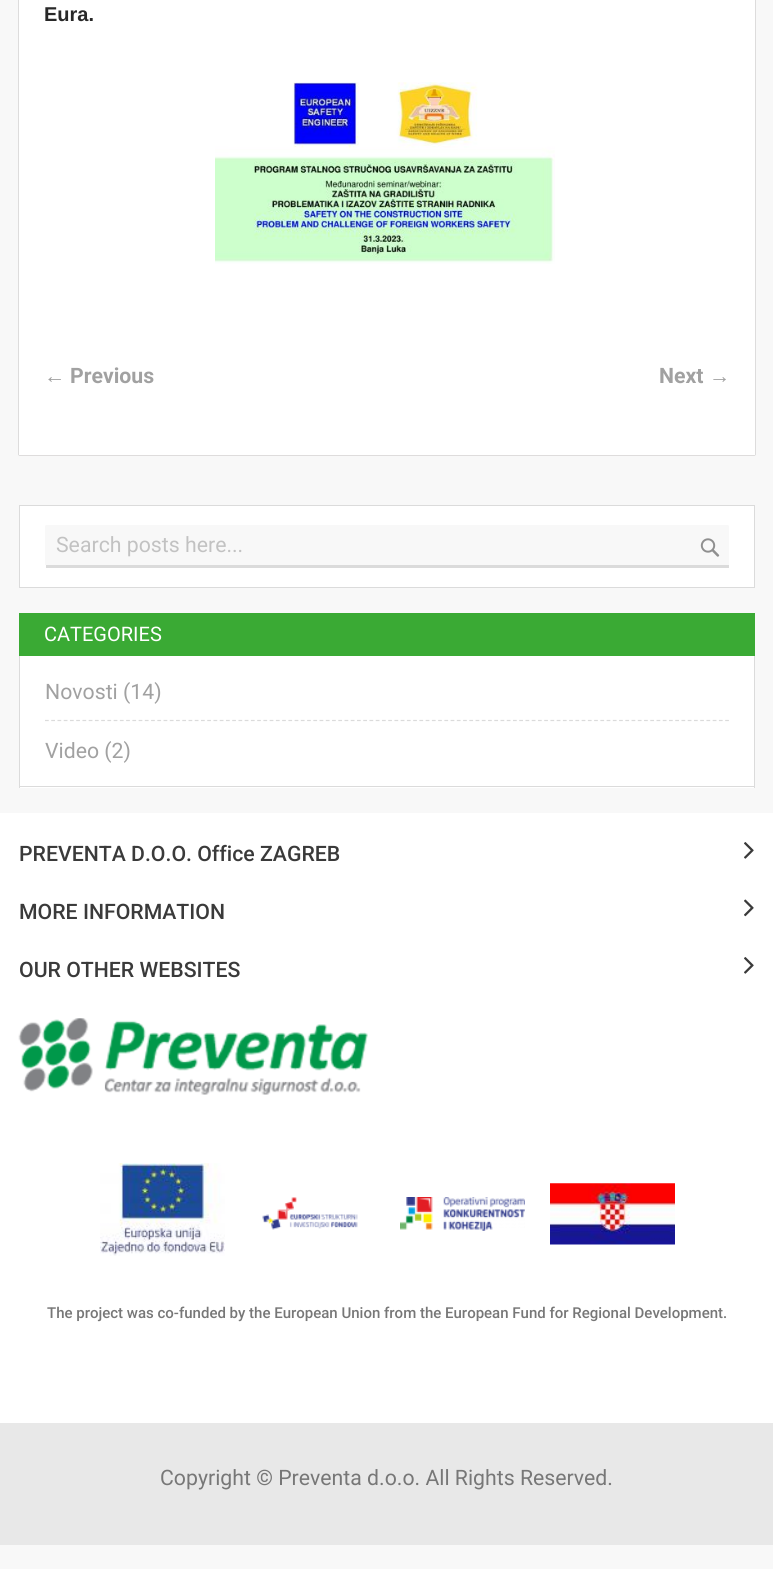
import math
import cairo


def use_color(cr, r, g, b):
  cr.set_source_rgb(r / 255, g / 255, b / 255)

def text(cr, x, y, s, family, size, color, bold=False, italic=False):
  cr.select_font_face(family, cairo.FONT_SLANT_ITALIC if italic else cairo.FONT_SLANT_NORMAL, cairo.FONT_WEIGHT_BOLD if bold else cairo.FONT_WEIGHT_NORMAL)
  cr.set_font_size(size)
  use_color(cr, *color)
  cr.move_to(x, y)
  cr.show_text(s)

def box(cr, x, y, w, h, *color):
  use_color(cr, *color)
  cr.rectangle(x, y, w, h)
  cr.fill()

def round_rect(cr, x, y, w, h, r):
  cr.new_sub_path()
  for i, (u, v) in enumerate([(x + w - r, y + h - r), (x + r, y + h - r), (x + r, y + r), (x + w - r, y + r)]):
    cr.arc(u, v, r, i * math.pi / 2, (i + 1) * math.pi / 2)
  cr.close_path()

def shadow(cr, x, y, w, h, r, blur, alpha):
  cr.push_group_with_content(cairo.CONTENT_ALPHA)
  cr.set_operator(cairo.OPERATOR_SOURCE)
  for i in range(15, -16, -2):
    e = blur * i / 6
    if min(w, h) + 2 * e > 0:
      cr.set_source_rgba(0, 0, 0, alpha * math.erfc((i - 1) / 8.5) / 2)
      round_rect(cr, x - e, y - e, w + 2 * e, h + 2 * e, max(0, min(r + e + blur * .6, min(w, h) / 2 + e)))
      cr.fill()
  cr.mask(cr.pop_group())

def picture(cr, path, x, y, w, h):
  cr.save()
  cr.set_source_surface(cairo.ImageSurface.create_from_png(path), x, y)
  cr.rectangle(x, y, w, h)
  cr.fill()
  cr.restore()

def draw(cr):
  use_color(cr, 248, 248, 248)
  cr.paint()
  use_color(cr, 140, 134, 134)
  shadow(cr, 19, -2, 736, 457, 0, 0.5, 1)
  box(cr, 19, 0, 736, 455, 255, 255, 255)
  picture(cr, "img_01.png", 215, 82, 340, 182)
  cr.rectangle(19.5, 505.5, 735, 82)
  cr.fill_preserve()
  use_color(cr, 219, 219, 219)
  cr.set_line_width(1)
  cr.stroke()
  use_color(cr, 248, 248, 248)
  cr.new_path()
  cr.move_to(46, 525)
  cr.line_to(728, 525)
  cr.curve_to(728, 525, 729, 526, 729, 526)
  cr.line_to(729, 565)
  cr.line_to(45, 565)
  cr.line_to(45, 526)
  cr.close_path()
  cr.fill()
  box(cr, 46, 565, 683, 3, 219, 219, 219)
  picture(cr, "img_02.png", 700, 538, 20, 19)
  box(cr, 20, 656, 734, 132, 255, 255, 255)
  box(cr, 19, 613, 736, 43, 58, 170, 52)
  box(cr, 754, 656, 1, 132, 219, 219, 219)
  box(cr, 19, 786, 736, 1, 219, 219, 219)
  box(cr, 19, 656, 1, 132, 219, 219, 219)
  cr.new_path()
  cr.move_to(45, 720.5)
  cr.line_to(729, 720.5)
  cr.set_line_width(1.2)
  cr.set_dash([3.75, 2.49])
  cr.stroke()
  box(cr, 0, 813, 773, 610, 255, 255, 255)
  picture(cr, "img_03.png", 744, 842, 10, 17)
  picture(cr, "img_04.png", 744, 899, 10, 18)
  picture(cr, "img_03.png", 744, 957, 10, 17)
  picture(cr, "img_05.png", 18, 1018, 350, 77)
  picture(cr, "img_06.png", 100, 1163, 125, 93)
  picture(cr, "img_07.png", 262, 1197, 96, 33)
  picture(cr, "img_08.png", 400, 1197, 125, 34)
  picture(cr, "img_09.png", 550, 1183, 125, 62)
  box(cr, 0, 1423, 773, 122, 232, 232, 232)
  text(cr, 44, 21, "Eura.", "Liberation Sans", 20, (40, 40, 40), bold=True)
  text(cr, 44, 383, "←", "Liberation Sans", 21.25, (161, 161, 161), bold=True)
  text(cr, 70, 383, "Previous", "Roboto", 21.25, (161, 161, 161), bold=True)
  text(cr, 659, 383, "Next", "Roboto", 21.25, (161, 161, 161), bold=True)
  text(cr, 709, 383, "→", "Liberation Sans", 21.25, (161, 161, 161), bold=True)
  text(cr, 56, 552, "Search posts here...", "Roboto", 21.25, (194, 194, 194))
  text(cr, 44, 641, "CATEGORIES", "Roboto", 20, (255, 255, 255))
  text(cr, 45, 699, "Novosti (14)", "Roboto", 21.25, (161, 161, 161))
  text(cr, 45, 758, "Video (2)", "Roboto", 21.25, (161, 161, 161))
  text(cr, 19, 861, "PREVENTA D.O.O. Office ZAGREB", "Roboto Medium", 21.25, (58, 58, 58))
  text(cr, 19, 919, "MORE INFORMATION", "Roboto Medium", 21.25, (58, 58, 58))
  text(cr, 19, 977, "OUR OTHER WEBSITES", "Roboto Medium", 21.25, (58, 58, 58))
  text(cr, 47, 1318, "The project was co-funded by the European Union from the European Fund for Regional Development.", "Roboto Medium", 15, (119, 119, 119))
  text(cr, 160, 1485, "Copyright © Preventa d.o.o. All Rights Reserved.", "Roboto", 21.25, (119, 119, 119))


surface = cairo.ImageSurface(cairo.FORMAT_RGB24, 773, 1569)
cr = cairo.Context(surface)
options = cairo.FontOptions()
options.set_hint_metrics(cairo.HINT_METRICS_OFF)
options.set_hint_style(cairo.HINT_STYLE_NONE)
cr.set_font_options(options)
cr.set_miter_limit(4)
draw(cr)
surface.write_to_png("out.png")
